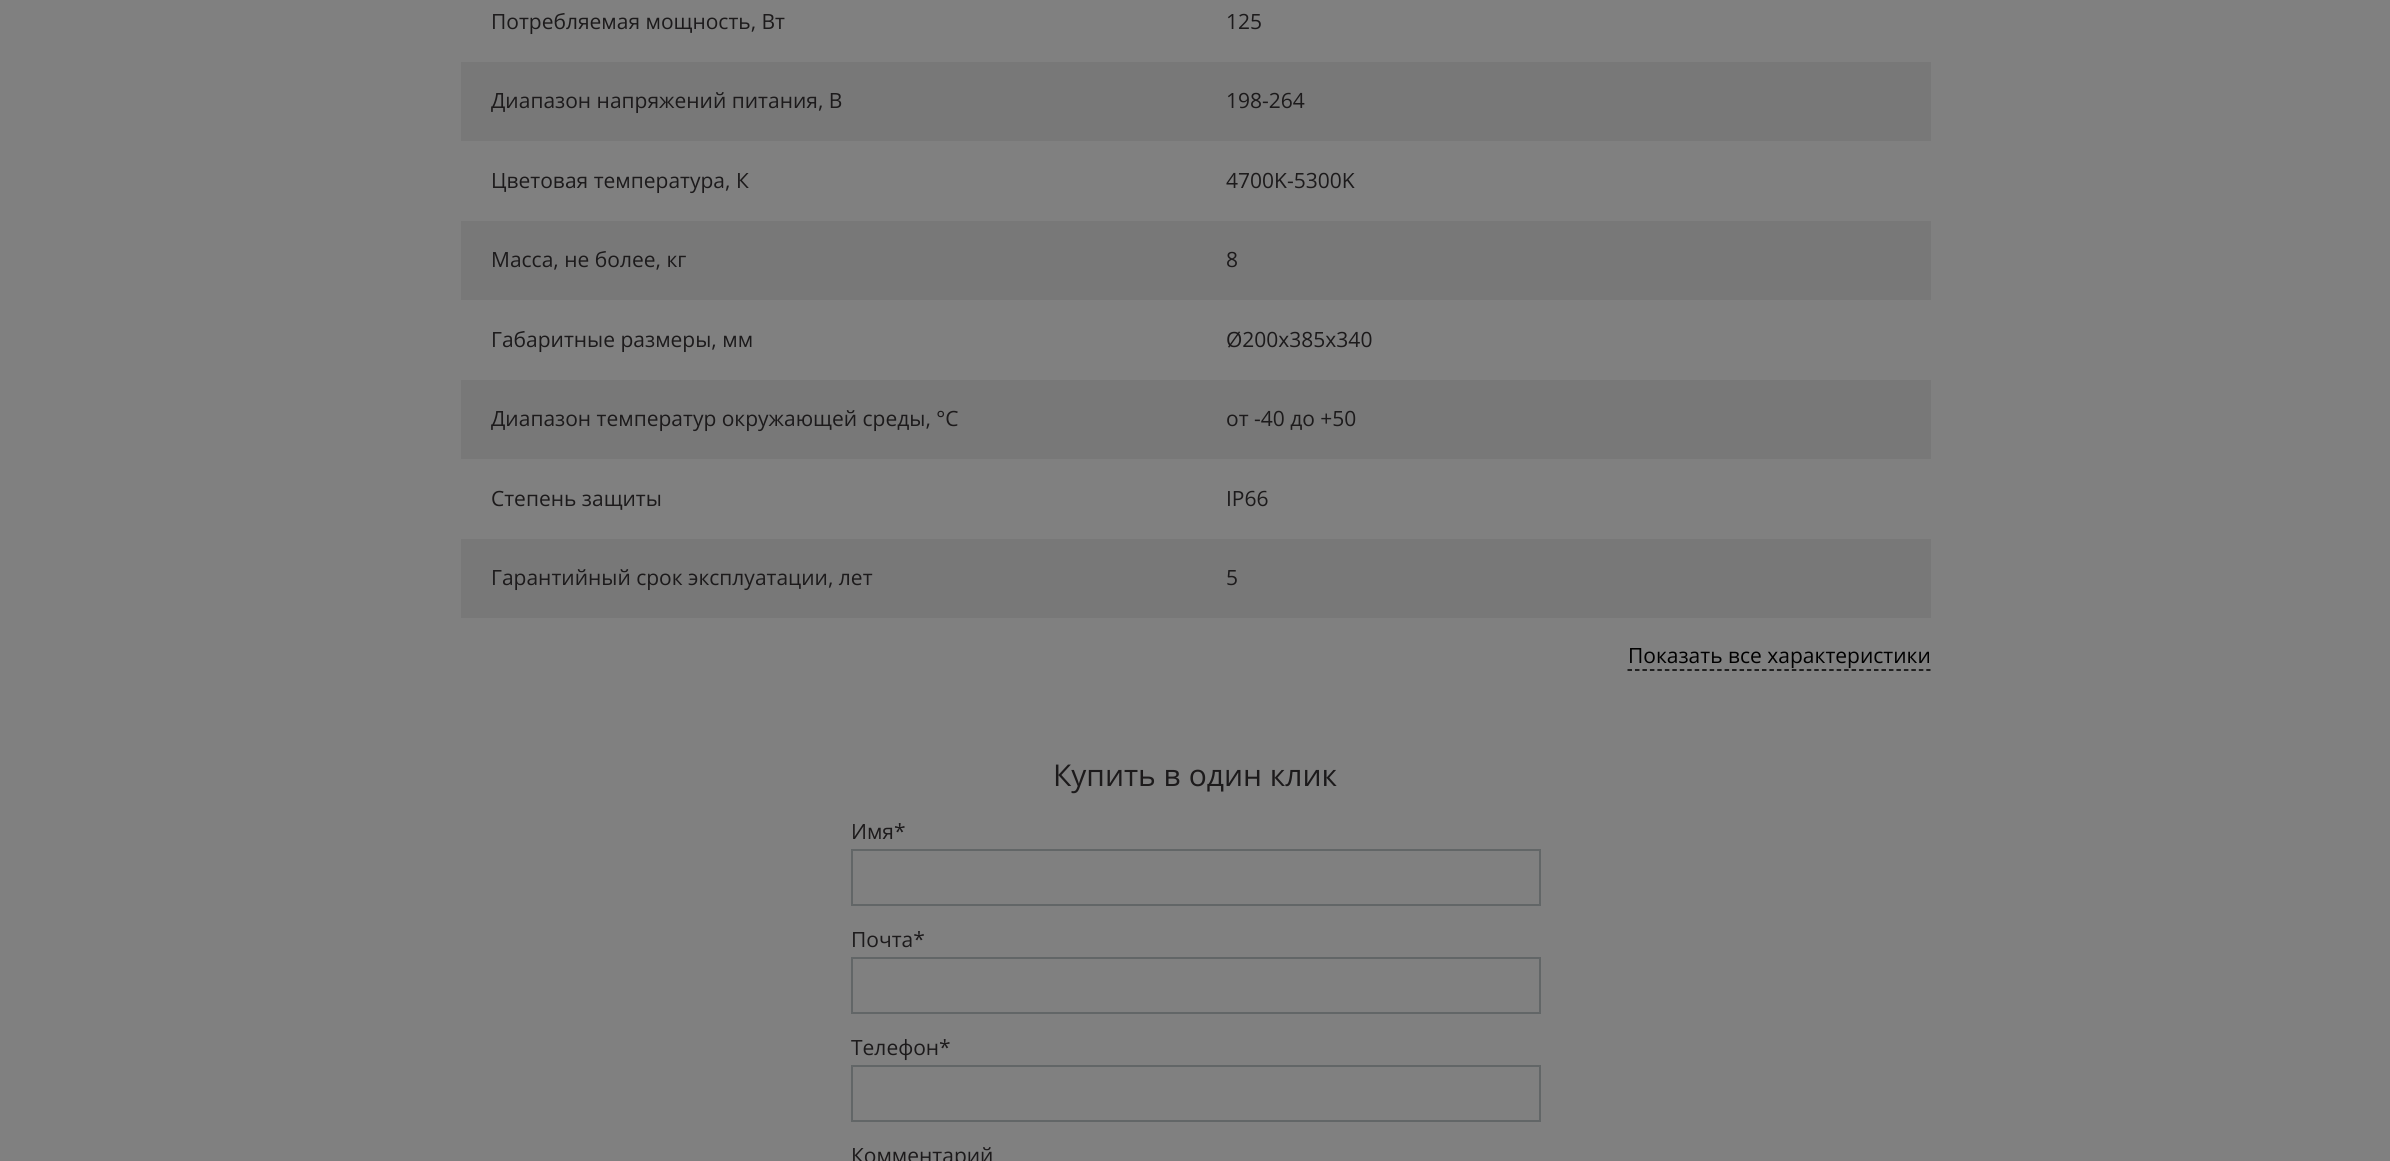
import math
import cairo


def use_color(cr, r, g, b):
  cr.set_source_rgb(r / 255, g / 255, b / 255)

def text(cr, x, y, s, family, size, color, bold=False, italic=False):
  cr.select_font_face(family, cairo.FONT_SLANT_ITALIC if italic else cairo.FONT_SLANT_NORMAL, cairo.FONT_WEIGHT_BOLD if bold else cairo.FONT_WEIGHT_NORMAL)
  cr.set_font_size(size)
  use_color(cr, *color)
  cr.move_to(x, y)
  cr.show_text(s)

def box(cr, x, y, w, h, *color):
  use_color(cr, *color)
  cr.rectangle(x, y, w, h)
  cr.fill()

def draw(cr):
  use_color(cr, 128, 128, 128)
  cr.paint()
  box(cr, 461, 62, 1470, 79, 120, 120, 120)
  box(cr, 461, 221, 1470, 79, 120, 120, 120)
  box(cr, 461, 380, 1470, 79, 120, 120, 120)
  box(cr, 461, 539, 1470, 79, 120, 120, 120)
  cr.new_path()
  cr.move_to(1627.5, 670)
  cr.line_to(1930.5, 670)
  use_color(cr, 0, 0, 0)
  cr.set_line_width(1.5)
  cr.set_dash([4.5, 2.97])
  cr.stroke()
  cr.rectangle(852, 850, 688, 55)
  use_color(cr, 98, 102, 103)
  cr.set_line_width(2)
  cr.set_dash([])
  cr.stroke()
  cr.rectangle(852, 958, 688, 55)
  cr.stroke()
  cr.rectangle(852, 1066, 688, 55)
  cr.stroke()
  text(cr, 491, 29, "Потребляемая мощность, Вт", "Open Sans", 21, (28, 26, 27))
  text(cr, 1226, 29, "125", "Open Sans", 21, (28, 26, 27))
  text(cr, 491, 108, "Диапазон напряжений питания, В", "Open Sans", 21, (28, 26, 27))
  text(cr, 1226, 108, "198-264", "Open Sans", 21, (28, 26, 27))
  text(cr, 491, 188, "Цветовая температура, К", "Open Sans", 21, (28, 26, 27))
  text(cr, 1226, 188, "4700K-5300K", "Open Sans", 21, (28, 26, 27))
  text(cr, 491, 267, "Масса, не более, кг", "Open Sans", 21, (28, 26, 27))
  text(cr, 1226, 267, "8", "Open Sans", 21, (28, 26, 27))
  text(cr, 491, 347, "Габаритные размеры, мм", "Open Sans", 21, (28, 26, 27))
  text(cr, 1226, 347, "Ø200х385х340", "Open Sans", 21, (28, 26, 27))
  text(cr, 491, 426, "Диапазон температур окружающей среды, °C", "Open Sans", 21, (28, 26, 27))
  text(cr, 1226, 426, "от -40 до +50", "Open Sans", 21, (28, 26, 27))
  text(cr, 491, 506, "Степень защиты", "Open Sans", 21, (28, 26, 27))
  text(cr, 1226, 506, "IP66", "Open Sans", 21, (28, 26, 27))
  text(cr, 491, 585, "Гарантийный срок эксплуатации, лет", "Open Sans", 21, (28, 26, 27))
  text(cr, 1226, 585, "5", "Open Sans", 21, (28, 26, 27))
  text(cr, 1628, 663, "Показать все характеристики", "Open Sans", 21, (0, 0, 0))
  text(cr, 1053, 786, "Купить в один клик", "Open Sans", 30, (28, 26, 27))
  text(cr, 851, 839, "Имя*", "Open Sans", 21, (28, 26, 27))
  text(cr, 851, 947, "Почта*", "Open Sans", 21, (28, 26, 27))
  text(cr, 851, 1055, "Телефон*", "Open Sans", 21, (28, 26, 27))
  text(cr, 851, 1163, "Комментарий", "Open Sans", 21, (28, 26, 27))


surface = cairo.ImageSurface(cairo.FORMAT_RGB24, 2390, 1161)
cr = cairo.Context(surface)
options = cairo.FontOptions()
options.set_hint_metrics(cairo.HINT_METRICS_OFF)
options.set_hint_style(cairo.HINT_STYLE_NONE)
cr.set_font_options(options)
cr.set_miter_limit(4)
draw(cr)
surface.write_to_png("out.png")
